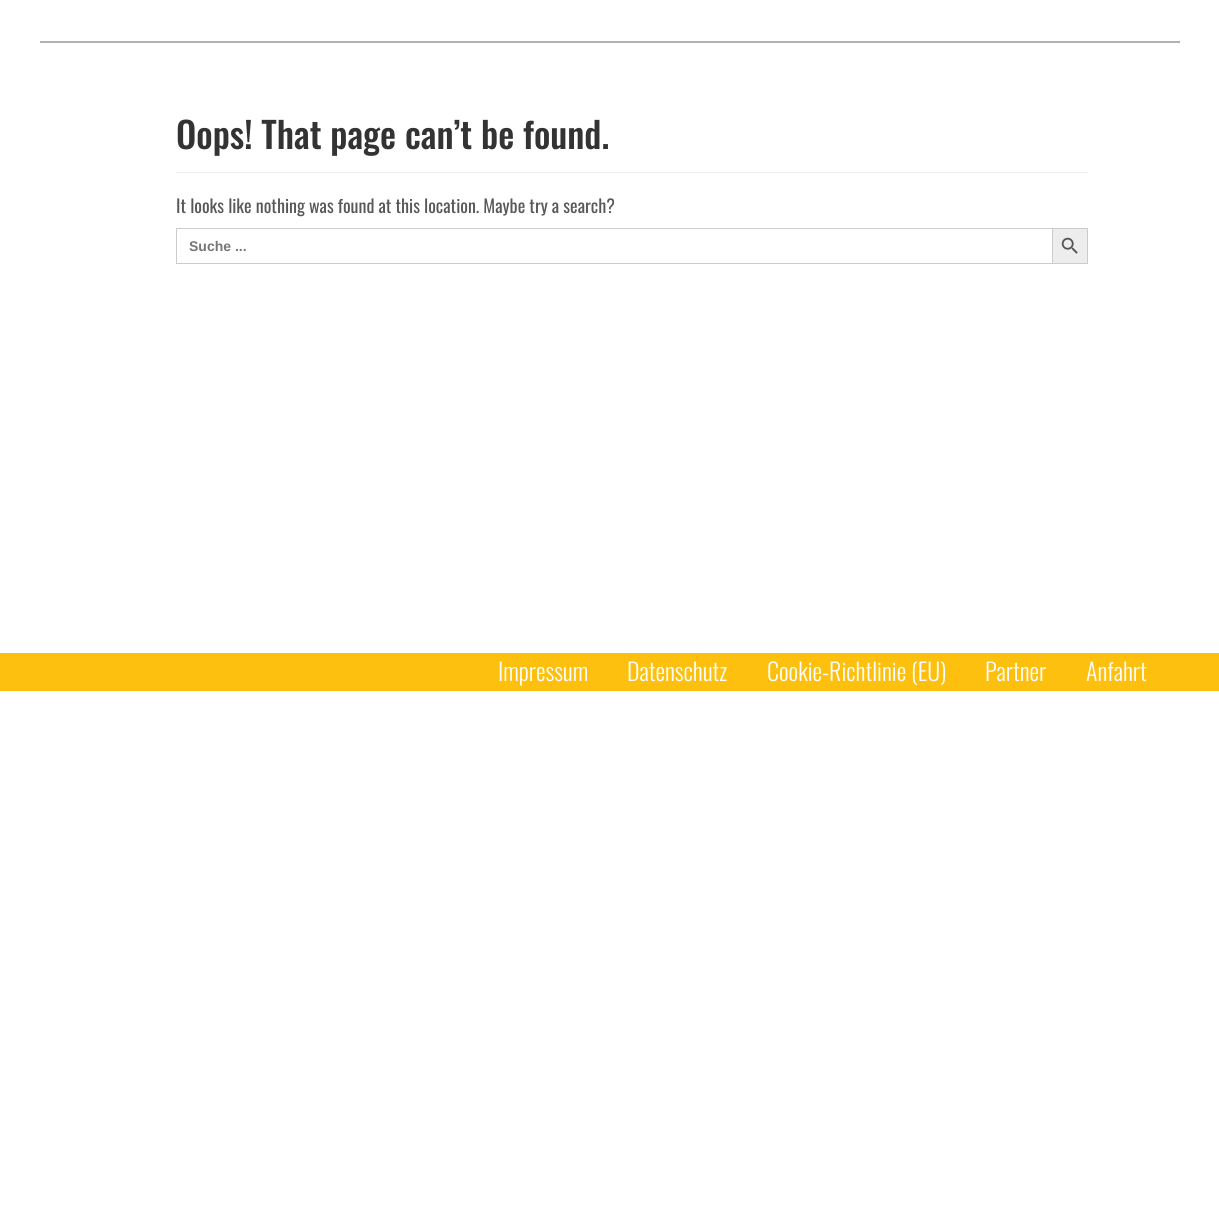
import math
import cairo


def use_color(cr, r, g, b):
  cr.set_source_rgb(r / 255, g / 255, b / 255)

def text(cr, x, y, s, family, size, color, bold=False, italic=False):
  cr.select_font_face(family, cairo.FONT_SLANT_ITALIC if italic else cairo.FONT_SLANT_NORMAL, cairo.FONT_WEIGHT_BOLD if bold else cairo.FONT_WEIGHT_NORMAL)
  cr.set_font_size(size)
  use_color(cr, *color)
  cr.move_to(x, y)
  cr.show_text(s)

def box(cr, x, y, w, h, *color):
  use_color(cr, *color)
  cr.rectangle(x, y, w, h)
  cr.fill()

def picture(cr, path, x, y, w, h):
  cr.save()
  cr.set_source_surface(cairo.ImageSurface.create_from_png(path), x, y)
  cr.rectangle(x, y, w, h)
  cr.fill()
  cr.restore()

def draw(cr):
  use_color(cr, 255, 255, 255)
  cr.paint()
  box(cr, 40, 41, 1140, 2, 178, 178, 178)
  box(cr, 176, 172, 912, 1, 238, 238, 238)
  box(cr, 176, 228, 876, 1, 204, 204, 204)
  box(cr, 176, 263, 876, 1, 204, 204, 204)
  box(cr, 176, 228, 1, 36, 204, 204, 204)
  use_color(cr, 237, 237, 237)
  cr.rectangle(1052.5, 228.5, 35, 35)
  cr.fill_preserve()
  use_color(cr, 204, 204, 204)
  cr.set_line_width(1)
  cr.stroke()
  picture(cr, "img_01.png", 1061, 237, 17, 17)
  box(cr, 0, 653, 1219, 38, 254, 192, 15)
  text(cr, 176, 149, "Oops! That page can’t be found.", "Oswald Medium", 36, (51, 51, 51))
  text(cr, 176, 213, "It looks like nothing was found at this location. Maybe try a search?", "Oswald", 18, (88, 88, 90))
  text(cr, 189, 251, "Suche ...", "Liberation Sans", 14, (117, 117, 117), bold=True)
  text(cr, 498, 681, "Impressum", "Oswald Light", 24, (255, 255, 255))
  text(cr, 627, 681, "Datenschutz", "Oswald Light", 24, (255, 255, 255))
  text(cr, 767, 681, "Cookie-Richtlinie (EU)", "Oswald Light", 24, (255, 255, 255))
  text(cr, 985, 681, "Partner", "Oswald Light", 24, (255, 255, 255))
  text(cr, 1086, 681, "Anfahrt", "Oswald Light", 24, (255, 255, 255))


surface = cairo.ImageSurface(cairo.FORMAT_RGB24, 1219, 1214)
cr = cairo.Context(surface)
options = cairo.FontOptions()
options.set_hint_metrics(cairo.HINT_METRICS_OFF)
options.set_hint_style(cairo.HINT_STYLE_NONE)
cr.set_font_options(options)
cr.set_miter_limit(4)
draw(cr)
surface.write_to_png("out.png")
